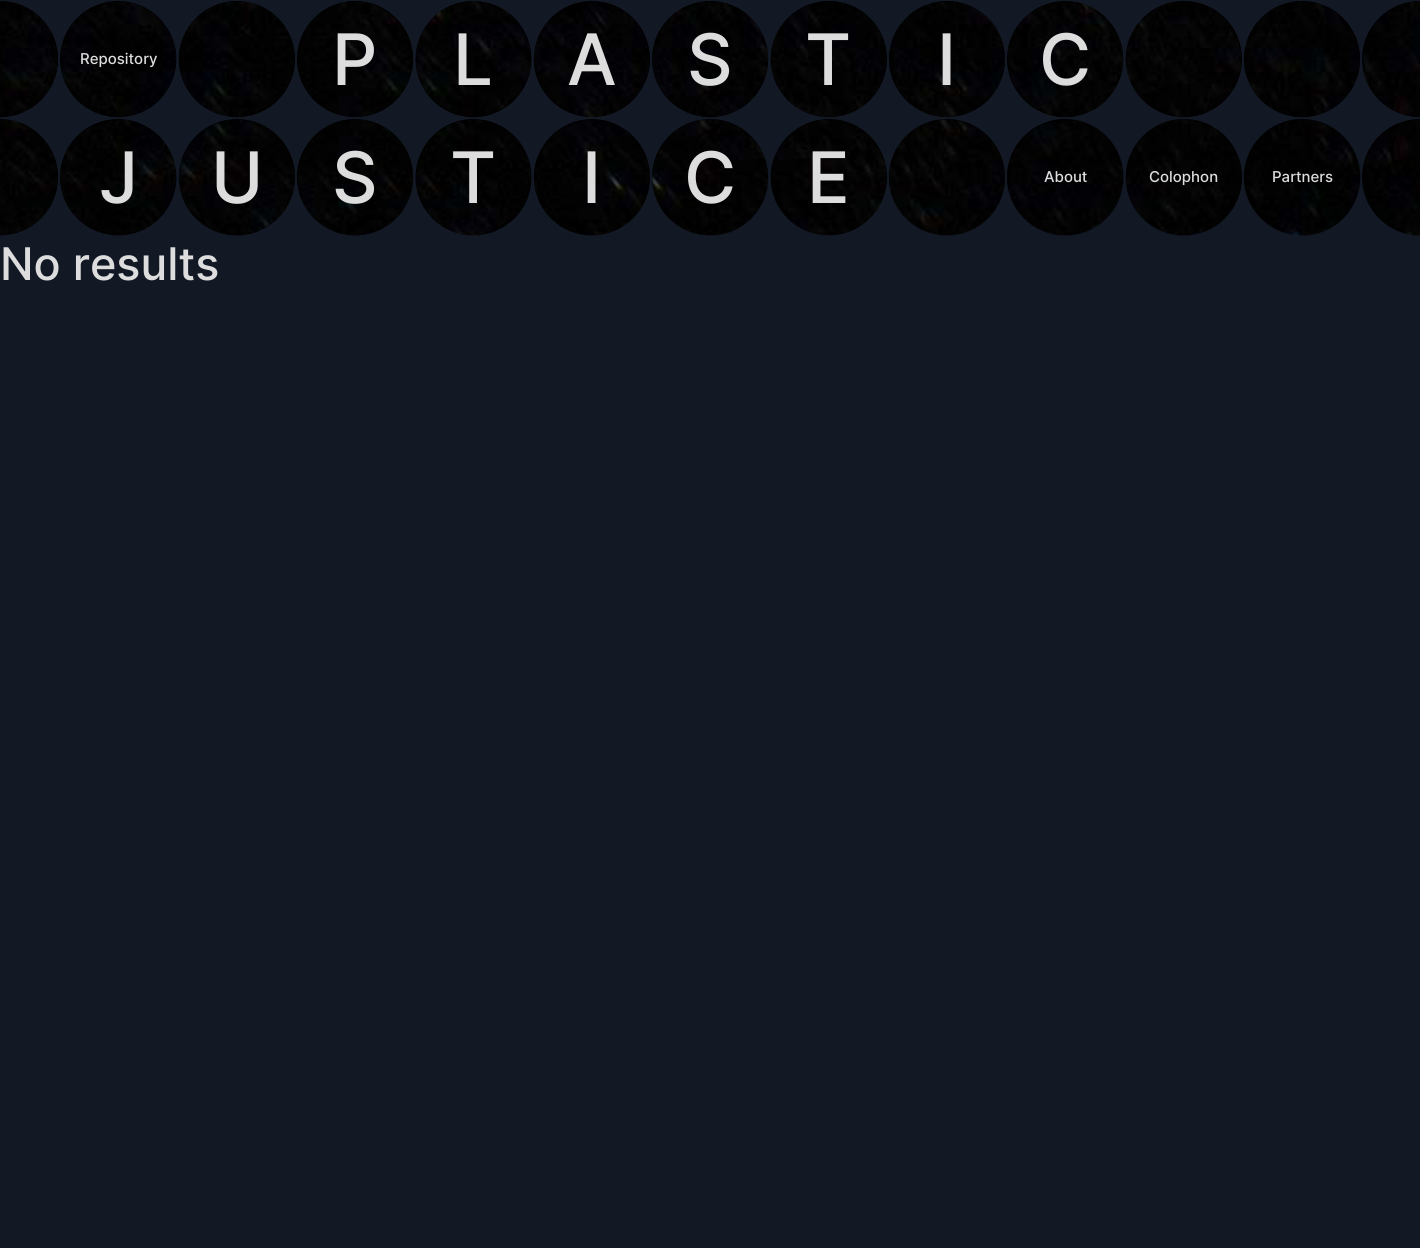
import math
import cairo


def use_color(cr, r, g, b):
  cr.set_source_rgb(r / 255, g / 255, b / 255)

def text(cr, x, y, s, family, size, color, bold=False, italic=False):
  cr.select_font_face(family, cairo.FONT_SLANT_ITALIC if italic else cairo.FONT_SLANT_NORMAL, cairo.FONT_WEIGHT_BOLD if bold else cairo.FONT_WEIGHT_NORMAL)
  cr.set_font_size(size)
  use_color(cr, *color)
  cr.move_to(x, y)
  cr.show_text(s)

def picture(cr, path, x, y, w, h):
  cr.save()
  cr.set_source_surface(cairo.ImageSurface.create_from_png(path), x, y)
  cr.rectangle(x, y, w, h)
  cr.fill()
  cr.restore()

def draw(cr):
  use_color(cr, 18, 25, 37)
  cr.paint()
  use_color(cr, 0, 0, 0)
  cr.new_path()
  cr.move_to(0, 1)
  cr.curve_to(-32, 1, -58, 27, -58, 59)
  cr.curve_to(-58, 91, -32, 117, 0, 117)
  cr.curve_to(32, 117, 58, 91, 58, 59)
  cr.curve_to(58, 27, 32, 1, 0, 1)
  cr.close_path()
  cr.fill()
  picture(cr, "img_01.png", 0, 1, 58, 117)
  cr.new_path()
  cr.move_to(118, 1)
  cr.curve_to(86, 1, 60, 27, 60, 59)
  cr.curve_to(60, 91, 86, 117, 118, 117)
  cr.curve_to(150, 117, 176, 91, 176, 59)
  cr.curve_to(176, 27, 150, 1, 118, 1)
  cr.close_path()
  cr.fill()
  picture(cr, "img_02.png", 61, 1, 116, 117)
  cr.new_path()
  cr.move_to(237, 1)
  cr.curve_to(205, 1, 179, 27, 179, 59)
  cr.curve_to(179, 91, 205, 117, 237, 117)
  cr.curve_to(269, 117, 295, 91, 295, 59)
  cr.curve_to(295, 27, 269, 1, 237, 1)
  cr.close_path()
  cr.fill()
  picture(cr, "img_03.png", 178, 1, 117, 117)
  cr.new_path()
  cr.move_to(355, 1)
  cr.curve_to(323, 1, 297, 27, 297, 59)
  cr.curve_to(297, 91, 323, 117, 355, 117)
  cr.curve_to(387, 117, 413, 91, 413, 59)
  cr.curve_to(413, 27, 387, 1, 355, 1)
  cr.close_path()
  cr.fill()
  picture(cr, "img_04.png", 297, 1, 117, 117)
  cr.new_path()
  cr.move_to(473, 1)
  cr.curve_to(441, 1, 416, 27, 416, 59)
  cr.curve_to(416, 91, 441, 117, 473, 117)
  cr.curve_to(506, 117, 531, 91, 531, 59)
  cr.curve_to(531, 27, 506, 1, 473, 1)
  cr.close_path()
  cr.fill()
  picture(cr, "img_05.png", 415, 1, 117, 117)
  cr.new_path()
  cr.move_to(592, 1)
  cr.curve_to(560, 1, 534, 27, 534, 59)
  cr.curve_to(534, 91, 560, 117, 592, 117)
  cr.curve_to(624, 117, 650, 91, 650, 59)
  cr.curve_to(650, 27, 624, 1, 592, 1)
  cr.close_path()
  cr.fill()
  picture(cr, "img_06.png", 533, 1, 117, 117)
  cr.new_path()
  cr.move_to(710, 1)
  cr.curve_to(678, 1, 652, 27, 652, 59)
  cr.curve_to(652, 91, 678, 117, 710, 117)
  cr.curve_to(742, 117, 768, 91, 768, 59)
  cr.curve_to(768, 27, 742, 1, 710, 1)
  cr.close_path()
  cr.fill()
  picture(cr, "img_07.png", 652, 1, 117, 117)
  cr.new_path()
  cr.move_to(829, 1)
  cr.curve_to(797, 1, 771, 27, 771, 59)
  cr.curve_to(771, 91, 797, 117, 829, 117)
  cr.curve_to(861, 117, 887, 91, 887, 59)
  cr.curve_to(887, 27, 861, 1, 829, 1)
  cr.close_path()
  cr.fill()
  picture(cr, "img_08.png", 770, 1, 116, 117)
  cr.new_path()
  cr.move_to(947, 1)
  cr.curve_to(915, 1, 889, 27, 889, 59)
  cr.curve_to(889, 91, 915, 117, 947, 117)
  cr.curve_to(979, 117, 1005, 91, 1005, 59)
  cr.curve_to(1005, 27, 979, 1, 947, 1)
  cr.close_path()
  cr.fill()
  picture(cr, "img_09.png", 889, 1, 116, 117)
  cr.new_path()
  cr.move_to(1065, 1)
  cr.curve_to(1033, 1, 1007, 27, 1007, 59)
  cr.curve_to(1007, 91, 1033, 117, 1065, 117)
  cr.curve_to(1097, 117, 1123, 91, 1123, 59)
  cr.curve_to(1123, 27, 1097, 1, 1065, 1)
  cr.close_path()
  cr.fill()
  picture(cr, "img_10.png", 1007, 1, 117, 117)
  cr.new_path()
  cr.move_to(1184, 1)
  cr.curve_to(1152, 1, 1126, 27, 1126, 59)
  cr.curve_to(1126, 91, 1152, 117, 1184, 117)
  cr.curve_to(1216, 117, 1242, 91, 1242, 59)
  cr.curve_to(1242, 27, 1216, 1, 1184, 1)
  cr.close_path()
  cr.fill()
  picture(cr, "img_11.png", 1125, 1, 117, 117)
  cr.new_path()
  cr.move_to(1302, 1)
  cr.curve_to(1270, 1, 1244, 27, 1244, 59)
  cr.curve_to(1244, 91, 1270, 117, 1302, 117)
  cr.curve_to(1334, 117, 1360, 91, 1360, 59)
  cr.curve_to(1360, 27, 1334, 1, 1302, 1)
  cr.close_path()
  cr.fill()
  picture(cr, "img_12.png", 1244, 1, 116, 117)
  cr.new_path()
  cr.move_to(1420, 1)
  cr.curve_to(1388, 1, 1362, 27, 1362, 59)
  cr.curve_to(1362, 91, 1388, 117, 1420, 117)
  cr.curve_to(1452, 117, 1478, 91, 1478, 59)
  cr.curve_to(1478, 27, 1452, 1, 1420, 1)
  cr.close_path()
  cr.fill()
  picture(cr, "img_13.png", 1362, 1, 58, 117)
  cr.new_path()
  cr.move_to(0, 119)
  cr.curve_to(-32, 119, -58, 145, -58, 177)
  cr.curve_to(-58, 209, -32, 235, 0, 235)
  cr.curve_to(32, 235, 58, 209, 58, 177)
  cr.curve_to(58, 145, 32, 119, 0, 119)
  cr.close_path()
  cr.fill()
  picture(cr, "img_14.png", 0, 120, 58, 116)
  cr.new_path()
  cr.move_to(118, 119)
  cr.curve_to(86, 119, 60, 145, 60, 177)
  cr.curve_to(60, 209, 86, 235, 118, 235)
  cr.curve_to(150, 235, 176, 209, 176, 177)
  cr.curve_to(176, 145, 150, 119, 118, 119)
  cr.close_path()
  cr.fill()
  picture(cr, "img_15.png", 60, 120, 117, 116)
  cr.new_path()
  cr.move_to(237, 119)
  cr.curve_to(205, 119, 179, 145, 179, 177)
  cr.curve_to(179, 209, 205, 235, 237, 235)
  cr.curve_to(269, 235, 295, 209, 295, 177)
  cr.curve_to(295, 145, 269, 119, 237, 119)
  cr.close_path()
  cr.fill()
  picture(cr, "img_16.png", 178, 120, 117, 116)
  cr.new_path()
  cr.move_to(355, 119)
  cr.curve_to(323, 119, 297, 145, 297, 177)
  cr.curve_to(297, 209, 323, 235, 355, 235)
  cr.curve_to(387, 235, 413, 209, 413, 177)
  cr.curve_to(413, 145, 387, 119, 355, 119)
  cr.close_path()
  cr.fill()
  picture(cr, "img_17.png", 297, 120, 116, 116)
  cr.new_path()
  cr.move_to(473, 119)
  cr.curve_to(441, 119, 416, 145, 416, 177)
  cr.curve_to(416, 209, 441, 235, 473, 235)
  cr.curve_to(506, 235, 531, 209, 531, 177)
  cr.curve_to(531, 145, 506, 119, 473, 119)
  cr.close_path()
  cr.fill()
  picture(cr, "img_18.png", 415, 120, 117, 116)
  cr.new_path()
  cr.move_to(592, 119)
  cr.curve_to(560, 119, 534, 145, 534, 177)
  cr.curve_to(534, 209, 560, 235, 592, 235)
  cr.curve_to(624, 235, 650, 209, 650, 177)
  cr.curve_to(650, 145, 624, 119, 592, 119)
  cr.close_path()
  cr.fill()
  picture(cr, "img_19.png", 533, 120, 117, 116)
  cr.new_path()
  cr.move_to(710, 119)
  cr.curve_to(678, 119, 652, 145, 652, 177)
  cr.curve_to(652, 209, 678, 235, 710, 235)
  cr.curve_to(742, 235, 768, 209, 768, 177)
  cr.curve_to(768, 145, 742, 119, 710, 119)
  cr.close_path()
  cr.fill()
  picture(cr, "img_20.png", 652, 119, 117, 117)
  cr.new_path()
  cr.move_to(829, 119)
  cr.curve_to(797, 119, 771, 145, 771, 177)
  cr.curve_to(771, 209, 797, 235, 829, 235)
  cr.curve_to(861, 235, 887, 209, 887, 177)
  cr.curve_to(887, 145, 861, 119, 829, 119)
  cr.close_path()
  cr.fill()
  picture(cr, "img_21.png", 770, 120, 116, 116)
  cr.new_path()
  cr.move_to(947, 119)
  cr.curve_to(915, 119, 889, 145, 889, 177)
  cr.curve_to(889, 209, 915, 235, 947, 235)
  cr.curve_to(979, 235, 1005, 209, 1005, 177)
  cr.curve_to(1005, 145, 979, 119, 947, 119)
  cr.close_path()
  cr.fill()
  picture(cr, "img_22.png", 889, 119, 116, 117)
  cr.new_path()
  cr.move_to(1065, 119)
  cr.curve_to(1033, 119, 1007, 145, 1007, 177)
  cr.curve_to(1007, 209, 1033, 235, 1065, 235)
  cr.curve_to(1097, 235, 1123, 209, 1123, 177)
  cr.curve_to(1123, 145, 1097, 119, 1065, 119)
  cr.close_path()
  cr.fill()
  picture(cr, "img_23.png", 1007, 119, 117, 117)
  cr.new_path()
  cr.move_to(1184, 119)
  cr.curve_to(1152, 119, 1126, 145, 1126, 177)
  cr.curve_to(1126, 209, 1152, 235, 1184, 235)
  cr.curve_to(1216, 235, 1242, 209, 1242, 177)
  cr.curve_to(1242, 145, 1216, 119, 1184, 119)
  cr.close_path()
  cr.fill()
  picture(cr, "img_24.png", 1125, 119, 117, 117)
  cr.new_path()
  cr.move_to(1302, 119)
  cr.curve_to(1270, 119, 1244, 145, 1244, 177)
  cr.curve_to(1244, 209, 1270, 235, 1302, 235)
  cr.curve_to(1334, 235, 1360, 209, 1360, 177)
  cr.curve_to(1360, 145, 1334, 119, 1302, 119)
  cr.close_path()
  cr.fill()
  picture(cr, "img_25.png", 1243, 119, 118, 117)
  cr.new_path()
  cr.move_to(1420, 119)
  cr.curve_to(1388, 119, 1362, 145, 1362, 177)
  cr.curve_to(1362, 209, 1388, 235, 1420, 235)
  cr.curve_to(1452, 235, 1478, 209, 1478, 177)
  cr.curve_to(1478, 145, 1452, 119, 1420, 119)
  cr.close_path()
  cr.fill()
  picture(cr, "img_26.png", 1364, 119, 56, 117)
  text(cr, 80, 64, "Repository", "Inter Medium", 15, (221, 221, 221))
  text(cr, 332, 85, "P", "Inter Medium", 71, (221, 221, 221))
  text(cr, 453, 85, "L", "Inter Medium", 71, (221, 221, 221))
  text(cr, 567, 85, "A", "Inter Medium", 71, (221, 221, 221))
  text(cr, 687, 85, "S", "Inter Medium", 71, (221, 221, 221))
  text(cr, 805, 85, "T", "Inter Medium", 71, (221, 221, 221))
  text(cr, 937, 85, "I", "Inter Medium", 71, (221, 221, 221))
  text(cr, 1039, 85, "C", "Inter Medium", 71, (221, 221, 221))
  text(cr, 99, 203, "J", "Inter Medium", 71, (221, 221, 221))
  text(cr, 211, 203, "U", "Inter Medium", 71, (221, 221, 221))
  text(cr, 332, 203, "S", "Inter Medium", 71, (221, 221, 221))
  text(cr, 450, 203, "T", "Inter Medium", 71, (221, 221, 221))
  text(cr, 582, 203, "I", "Inter Medium", 71, (221, 221, 221))
  text(cr, 684, 203, "C", "Inter Medium", 71, (221, 221, 221))
  text(cr, 807, 203, "E", "Inter Medium", 71, (221, 221, 221))
  text(cr, 1044, 182, "About", "Inter Medium", 15, (221, 221, 221))
  text(cr, 1149, 182, "Colophon", "Inter Medium", 15, (221, 221, 221))
  text(cr, 1272, 182, "Partners", "Inter Medium", 15, (221, 221, 221))
  text(cr, 0, 280, "No results", "Inter Medium", 45, (221, 221, 221))


surface = cairo.ImageSurface(cairo.FORMAT_RGB24, 1420, 1248)
cr = cairo.Context(surface)
options = cairo.FontOptions()
options.set_hint_metrics(cairo.HINT_METRICS_OFF)
options.set_hint_style(cairo.HINT_STYLE_NONE)
cr.set_font_options(options)
cr.set_miter_limit(4)
draw(cr)
surface.write_to_png("out.png")
